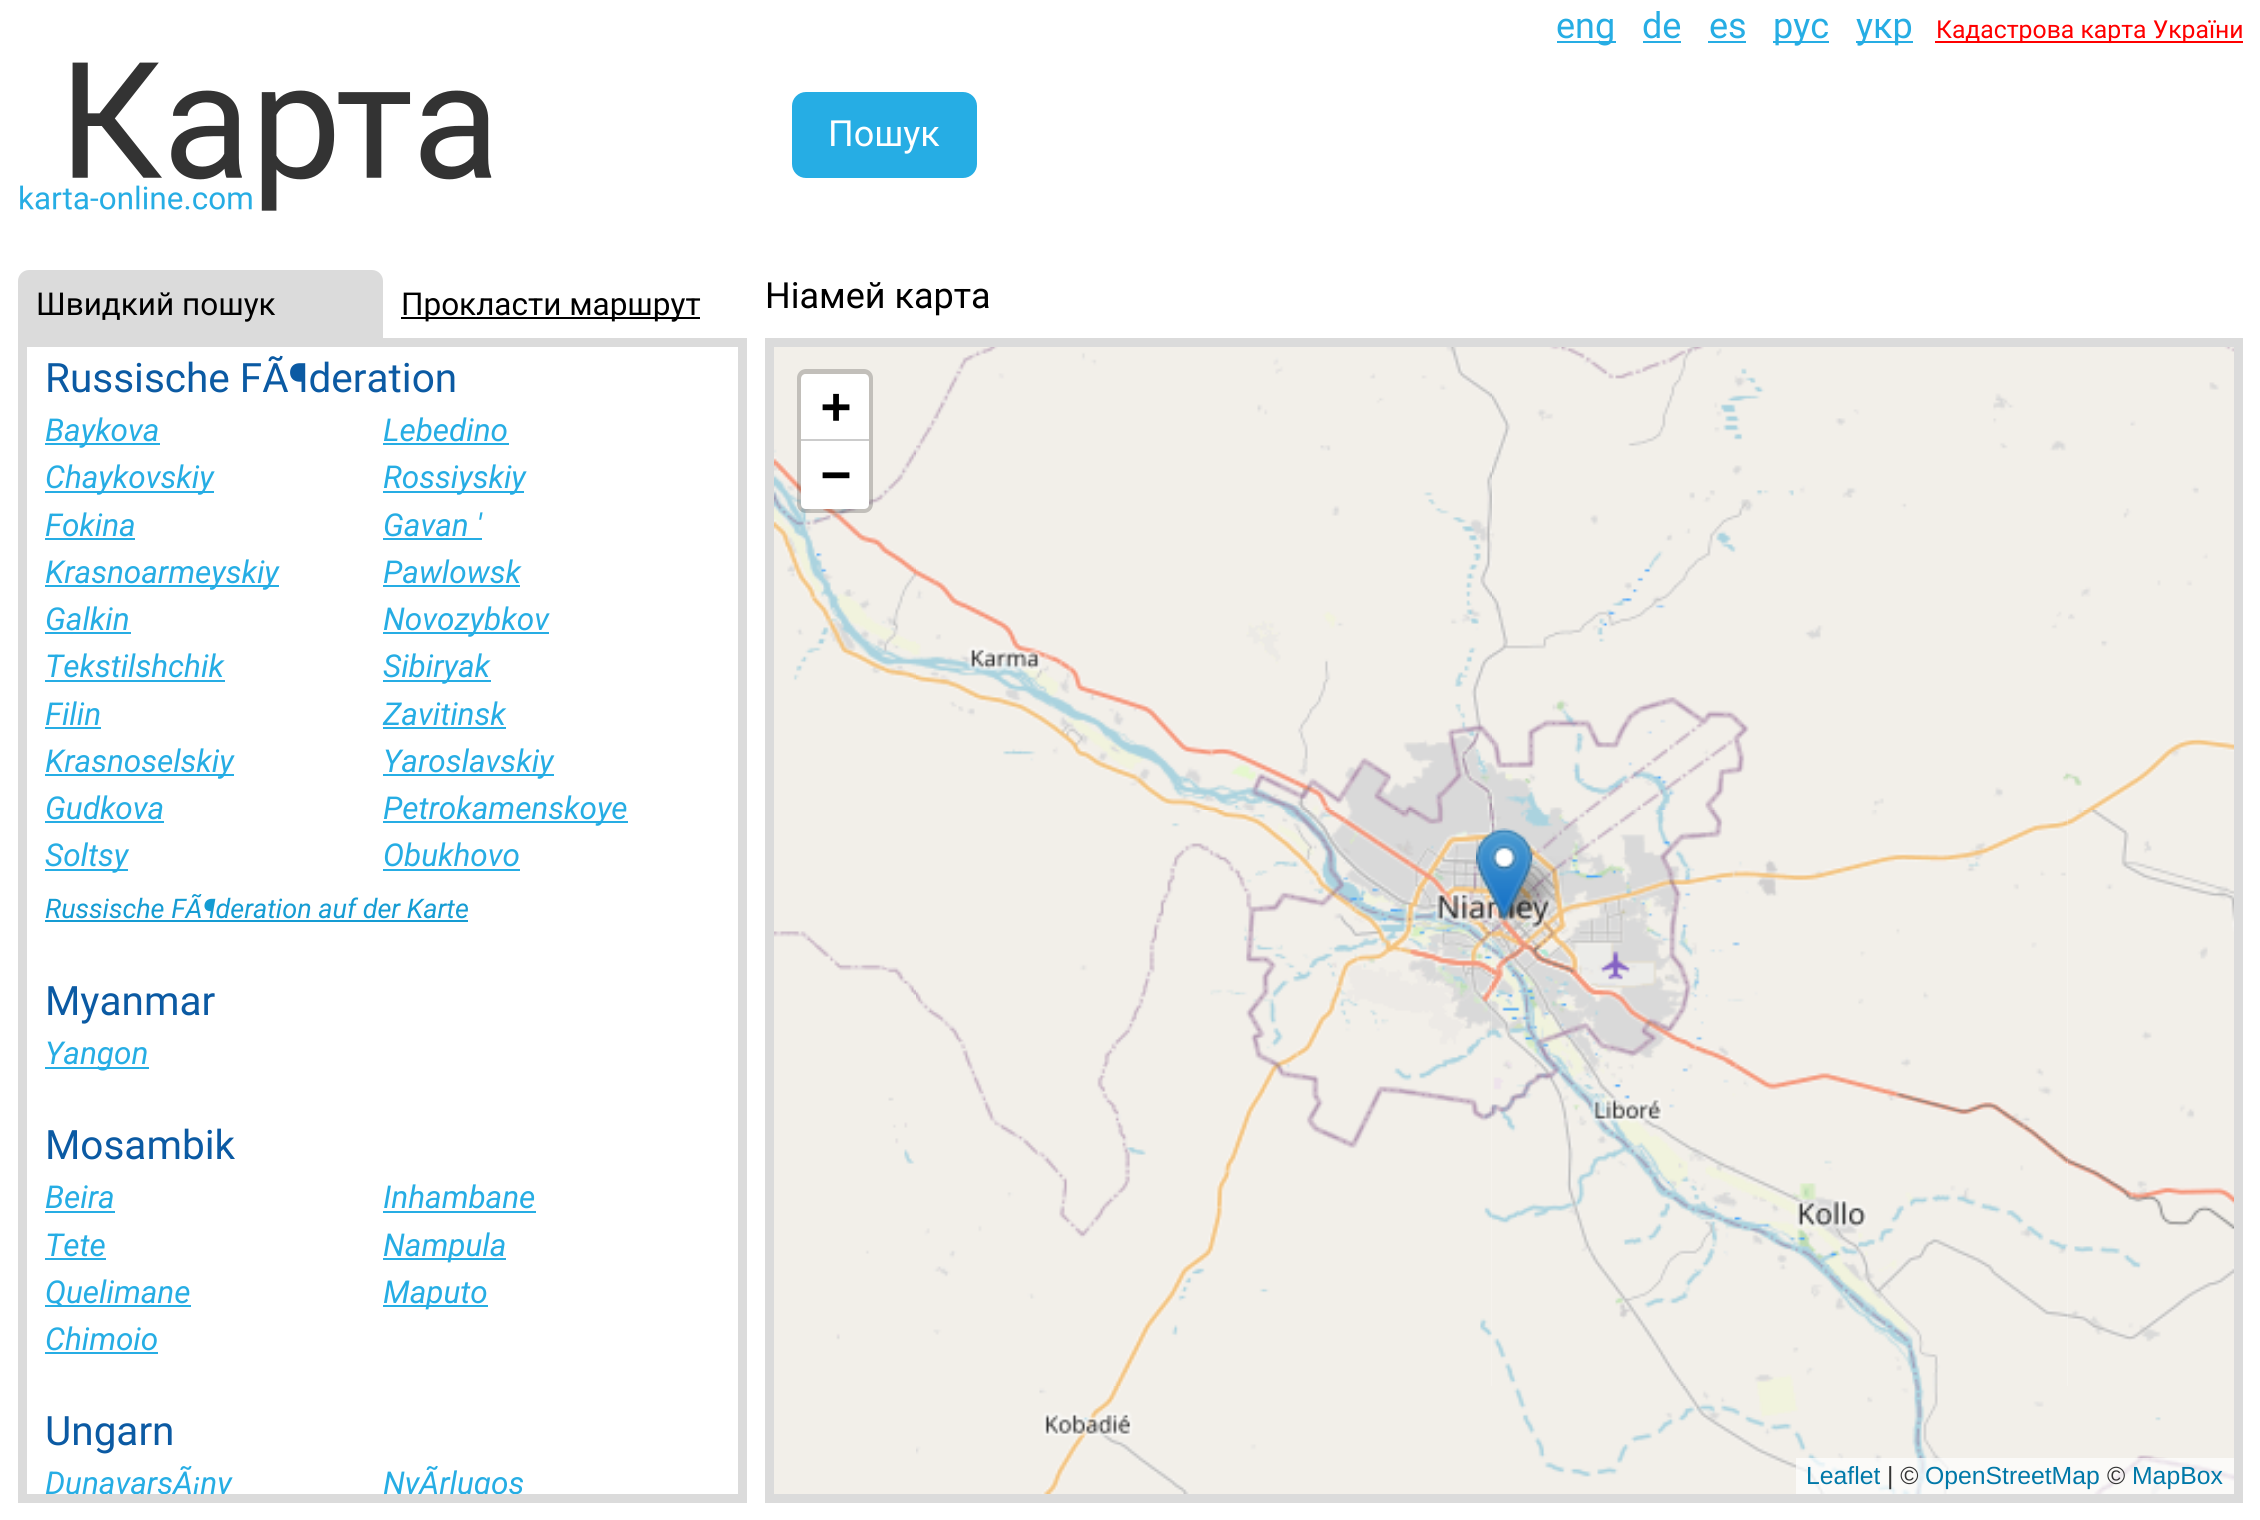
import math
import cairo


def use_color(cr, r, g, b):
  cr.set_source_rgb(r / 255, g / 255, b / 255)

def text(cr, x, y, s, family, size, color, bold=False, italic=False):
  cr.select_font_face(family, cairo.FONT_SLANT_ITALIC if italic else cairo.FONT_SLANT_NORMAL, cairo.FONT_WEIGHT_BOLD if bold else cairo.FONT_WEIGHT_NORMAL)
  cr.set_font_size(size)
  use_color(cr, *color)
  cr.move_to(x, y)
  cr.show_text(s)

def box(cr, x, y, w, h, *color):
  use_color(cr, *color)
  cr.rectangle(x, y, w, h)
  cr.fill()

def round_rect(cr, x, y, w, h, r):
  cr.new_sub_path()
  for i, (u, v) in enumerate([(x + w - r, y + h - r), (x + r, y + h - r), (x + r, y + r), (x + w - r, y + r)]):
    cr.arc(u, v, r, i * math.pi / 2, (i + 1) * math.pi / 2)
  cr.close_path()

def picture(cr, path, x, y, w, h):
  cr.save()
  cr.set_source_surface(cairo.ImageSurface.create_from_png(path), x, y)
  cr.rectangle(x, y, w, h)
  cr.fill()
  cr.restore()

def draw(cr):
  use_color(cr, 255, 255, 255)
  cr.paint()
  box(cr, 1557, 41, 59, 2, 38, 173, 228)
  box(cr, 1643, 41, 38, 2, 38, 173, 228)
  box(cr, 1708, 41, 38, 2, 38, 173, 228)
  box(cr, 1773, 41, 56, 2, 38, 173, 228)
  box(cr, 1856, 41, 57, 2, 38, 173, 228)
  box(cr, 1935, 41, 308, 2, 255, 0, 0)
  picture(cr, "img_01.png", 20, 62, 472, 149)
  use_color(cr, 38, 173, 228)
  round_rect(cr, 792, 92, 185, 86, 14)
  cr.fill()
  use_color(cr, 219, 219, 219)
  cr.new_path()
  cr.move_to(29, 270)
  cr.line_to(372, 270)
  cr.curve_to(378, 270, 383, 275, 383, 281)
  cr.line_to(383, 338)
  cr.line_to(18, 338)
  cr.line_to(18, 281)
  cr.curve_to(18, 275, 23, 270, 29, 270)
  cr.close_path()
  cr.fill()
  box(cr, 401, 317, 299, 2, 0, 0, 0)
  cr.rectangle(22.5, 342.5, 720, 1156)
  use_color(cr, 219, 219, 219)
  cr.set_line_width(9)
  cr.stroke()
  box(cr, 45, 443, 115, 2, 38, 173, 228)
  box(cr, 383, 443, 126, 2, 38, 173, 228)
  box(cr, 45, 491, 169, 2, 38, 173, 228)
  box(cr, 383, 491, 141, 2, 38, 173, 228)
  box(cr, 45, 538, 90, 2, 38, 173, 228)
  box(cr, 383, 538, 99, 2, 38, 173, 228)
  box(cr, 45, 585, 234, 2, 38, 173, 228)
  box(cr, 383, 585, 137, 2, 38, 173, 228)
  box(cr, 45, 632, 86, 2, 38, 173, 228)
  box(cr, 383, 632, 166, 2, 38, 173, 228)
  box(cr, 45, 680, 180, 2, 38, 173, 228)
  box(cr, 383, 680, 108, 2, 38, 173, 228)
  box(cr, 45, 727, 56, 2, 38, 173, 228)
  box(cr, 383, 727, 123, 2, 38, 173, 228)
  box(cr, 45, 774, 189, 2, 38, 173, 228)
  box(cr, 383, 774, 171, 2, 38, 173, 228)
  box(cr, 45, 821, 119, 2, 38, 173, 228)
  box(cr, 383, 821, 245, 2, 38, 173, 228)
  box(cr, 45, 869, 83, 2, 38, 173, 228)
  box(cr, 383, 869, 137, 2, 38, 173, 228)
  box(cr, 45, 920, 423, 2, 21, 156, 211)
  box(cr, 45, 1067, 104, 2, 38, 173, 228)
  box(cr, 45, 1211, 70, 2, 38, 173, 228)
  box(cr, 383, 1211, 153, 2, 38, 173, 228)
  box(cr, 45, 1258, 61, 2, 38, 173, 228)
  box(cr, 383, 1258, 123, 2, 38, 173, 228)
  box(cr, 45, 1305, 146, 2, 38, 173, 228)
  box(cr, 383, 1305, 105, 2, 38, 173, 228)
  box(cr, 45, 1352, 113, 2, 38, 173, 228)
  cr.rectangle(769.5, 342.5, 1469, 1156)
  use_color(cr, 219, 219, 219)
  cr.stroke()
  picture(cr, "img_02.png", 774, 347, 142, 463)
  picture(cr, "img_03.png", 916, 347, 576, 463)
  picture(cr, "img_04.png", 1492, 347, 576, 463)
  picture(cr, "img_05.png", 2068, 347, 166, 463)
  picture(cr, "img_06.png", 774, 810, 142, 576)
  picture(cr, "img_07.png", 916, 810, 576, 576)
  picture(cr, "img_08.png", 1491, 810, 577, 576)
  picture(cr, "img_09.png", 2068, 810, 166, 576)
  box(cr, 774, 1386, 142, 108, 242, 239, 233)
  picture(cr, "img_10.png", 916, 1386, 576, 108)
  picture(cr, "img_11.png", 1492, 1386, 576, 108)
  picture(cr, "img_12.png", 2068, 1386, 166, 108)
  picture(cr, "img_14.png", 1496, 856, 68, 65)
  picture(cr, "img_13.png", 1476, 828, 57, 93)
  round_rect(cr, 799.5, 371.5, 71, 139, 6.5)
  cr.set_source_rgba(0, 0, 0, 0.2)
  cr.set_line_width(5)
  cr.stroke()
  use_color(cr, 255, 255, 255)
  cr.new_path()
  cr.move_to(806, 374)
  cr.line_to(864, 374)
  cr.curve_to(867, 374, 869, 376, 869, 379)
  cr.line_to(869, 439)
  cr.line_to(801, 439)
  cr.line_to(801, 379)
  cr.curve_to(801, 376, 803, 374, 806, 374)
  cr.close_path()
  cr.fill()
  box(cr, 801, 439, 68, 2, 204, 204, 204)
  use_color(cr, 255, 255, 255)
  cr.new_path()
  cr.move_to(801, 441)
  cr.line_to(869, 441)
  cr.line_to(869, 504)
  cr.curve_to(869, 507, 867, 509, 864, 509)
  cr.line_to(806, 509)
  cr.curve_to(803, 509, 801, 507, 801, 504)
  cr.close_path()
  cr.fill()
  cr.set_source_rgba(1, 1, 1, 0.7)
  cr.rectangle(1796, 1458, 438, 36)
  cr.fill()
  text(cr, 1556, 38, "eng", "Roboto", 36, (38, 173, 228))
  text(cr, 1642, 38, "de", "Roboto", 36, (38, 173, 228))
  text(cr, 1709, 38, "es", "Roboto", 36, (38, 173, 228))
  text(cr, 1773, 38, "рус", "Roboto", 36, (38, 173, 228))
  text(cr, 1856, 38, "укр", "Roboto", 36, (38, 173, 228))
  text(cr, 1936, 38, "Кадастрова карта України", "Roboto", 24.75, (255, 0, 0))
  text(cr, 828, 146, "Пошук", "Roboto", 36, (255, 255, 255))
  text(cr, 36, 315, "Швидкий пошук", "Roboto", 31.5, (0, 0, 0))
  text(cr, 401, 315, "Прокласти маршрут", "Roboto", 31.5, (0, 0, 0))
  text(cr, 45, 392, "Russische FÃ¶deration", "Roboto", 40.5, (11, 90, 163))
  text(cr, 45, 441, "Baykova", "Roboto", 31.5, (38, 173, 228), italic=True)
  text(cr, 383, 441, "Lebedino", "Roboto", 31.5, (38, 173, 228), italic=True)
  text(cr, 45, 488, "Chaykovskiy", "Roboto", 31.5, (38, 173, 228), italic=True)
  text(cr, 383, 488, "Rossiyskiy", "Roboto", 31.5, (38, 173, 228), italic=True)
  text(cr, 45, 536, "Fokina", "Roboto", 31.5, (38, 173, 228), italic=True)
  text(cr, 383, 536, "Gavan '", "Roboto", 31.5, (38, 173, 228), italic=True)
  text(cr, 45, 583, "Krasnoarmeyskiy", "Roboto", 31.5, (38, 173, 228), italic=True)
  text(cr, 383, 583, "Pawlowsk", "Roboto", 31.5, (38, 173, 228), italic=True)
  text(cr, 45, 630, "Galkin", "Roboto", 31.5, (38, 173, 228), italic=True)
  text(cr, 383, 630, "Novozybkov", "Roboto", 31.5, (38, 173, 228), italic=True)
  text(cr, 45, 677, "Tekstilshchik", "Roboto", 31.5, (38, 173, 228), italic=True)
  text(cr, 383, 677, "Sibiryak", "Roboto", 31.5, (38, 173, 228), italic=True)
  text(cr, 45, 725, "Filin", "Roboto", 31.5, (38, 173, 228), italic=True)
  text(cr, 383, 725, "Zavitinsk", "Roboto", 31.5, (38, 173, 228), italic=True)
  text(cr, 45, 772, "Krasnoselskiy", "Roboto", 31.5, (38, 173, 228), italic=True)
  text(cr, 383, 772, "Yaroslavskiy", "Roboto", 31.5, (38, 173, 228), italic=True)
  text(cr, 45, 819, "Gudkova", "Roboto", 31.5, (38, 173, 228), italic=True)
  text(cr, 383, 819, "Petrokamenskoye", "Roboto", 31.5, (38, 173, 228), italic=True)
  text(cr, 45, 866, "Soltsy", "Roboto", 31.5, (38, 173, 228), italic=True)
  text(cr, 383, 866, "Obukhovo", "Roboto", 31.5, (38, 173, 228), italic=True)
  text(cr, 45, 918, "Russische FÃ¶deration auf der Karte", "Roboto", 27, (21, 156, 211), italic=True)
  text(cr, 45, 1015, "Myanmar", "Roboto", 40.5, (11, 90, 163))
  text(cr, 45, 1064, "Yangon", "Roboto", 31.5, (38, 173, 228), italic=True)
  text(cr, 45, 1159, "Mosambik", "Roboto", 40.5, (11, 90, 163))
  text(cr, 45, 1208, "Beira", "Roboto", 31.5, (38, 173, 228), italic=True)
  text(cr, 383, 1208, "Inhambane", "Roboto", 31.5, (38, 173, 228), italic=True)
  text(cr, 45, 1256, "Tete", "Roboto", 31.5, (38, 173, 228), italic=True)
  text(cr, 383, 1256, "Nampula", "Roboto", 31.5, (38, 173, 228), italic=True)
  text(cr, 45, 1303, "Quelimane", "Roboto", 31.5, (38, 173, 228), italic=True)
  text(cr, 383, 1303, "Maputo", "Roboto", 31.5, (38, 173, 228), italic=True)
  text(cr, 45, 1350, "Chimoio", "Roboto", 31.5, (38, 173, 228), italic=True)
  text(cr, 45, 1445, "Ungarn", "Roboto", 40.5, (11, 90, 163))
  cr.save()
  cr.rectangle(27, 347, 711, 1147)
  cr.clip()
  text(cr, 45, 1494, "DunavarsÃ¡ny", "Roboto", 31.5, (38, 173, 228), italic=True)
  text(cr, 383, 1494, "NyÃrlugos", "Roboto", 31.5, (38, 173, 228), italic=True)
  cr.restore()
  text(cr, 765, 308, "Ніамей карта", "Roboto", 36, (0, 0, 0))
  text(cr, 821, 423, "+", "DejaVu Sans Mono", 50, (0, 0, 0), bold=True)
  text(cr, 821, 491, "−", "DejaVu Sans Mono", 50, (0, 0, 0), bold=True)
  text(cr, 1806, 1484, "Leaflet", "Liberation Sans", 24.75, (0, 120, 168))
  text(cr, 1887, 1484, "| ©", "Liberation Sans", 24.75, (51, 51, 51))
  text(cr, 1925, 1484, "OpenStreetMap", "Liberation Sans", 24.75, (0, 120, 168))
  text(cr, 2107, 1484, "©", "Liberation Sans", 24.75, (51, 51, 51))
  text(cr, 2132, 1484, "MapBox", "Liberation Sans", 24.75, (0, 120, 168))


surface = cairo.ImageSurface(cairo.FORMAT_RGB24, 2260, 1520)
cr = cairo.Context(surface)
options = cairo.FontOptions()
options.set_hint_metrics(cairo.HINT_METRICS_OFF)
options.set_hint_style(cairo.HINT_STYLE_NONE)
cr.set_font_options(options)
cr.set_miter_limit(4)
draw(cr)
surface.write_to_png("out.png")
